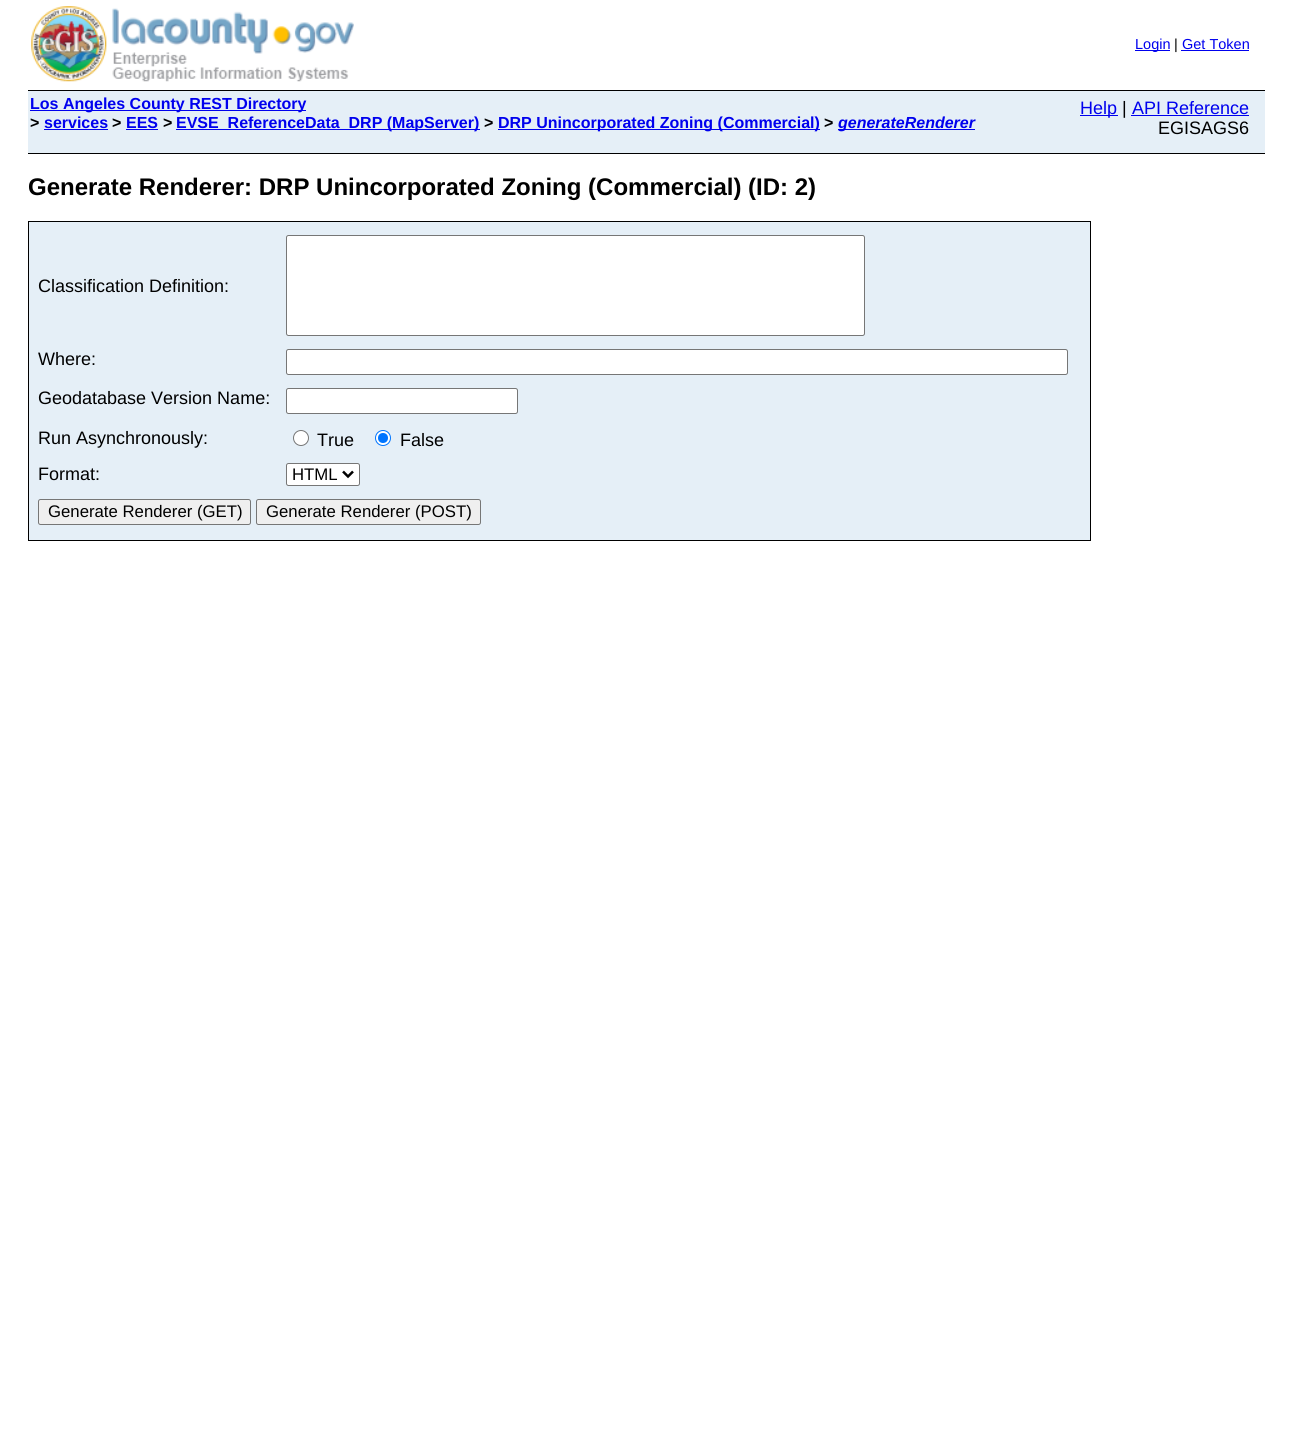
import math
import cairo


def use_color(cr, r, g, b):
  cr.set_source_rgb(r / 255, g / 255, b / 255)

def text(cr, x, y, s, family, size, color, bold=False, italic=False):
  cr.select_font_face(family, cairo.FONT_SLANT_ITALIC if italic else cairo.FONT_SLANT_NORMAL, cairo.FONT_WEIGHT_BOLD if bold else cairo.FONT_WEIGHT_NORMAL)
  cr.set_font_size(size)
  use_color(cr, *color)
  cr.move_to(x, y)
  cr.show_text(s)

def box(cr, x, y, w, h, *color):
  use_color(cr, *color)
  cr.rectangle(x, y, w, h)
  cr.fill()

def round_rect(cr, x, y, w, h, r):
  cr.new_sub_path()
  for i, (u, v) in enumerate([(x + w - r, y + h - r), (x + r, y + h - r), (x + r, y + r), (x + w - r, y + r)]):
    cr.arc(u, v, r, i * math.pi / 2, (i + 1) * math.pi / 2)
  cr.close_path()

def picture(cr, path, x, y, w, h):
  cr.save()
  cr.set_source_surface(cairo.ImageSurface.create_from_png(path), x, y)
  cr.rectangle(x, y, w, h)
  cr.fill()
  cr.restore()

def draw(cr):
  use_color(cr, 255, 255, 255)
  cr.paint()
  picture(cr, "img_01.png", 31, 6, 323, 76)
  box(cr, 1135, 50, 35, 1, 0, 0, 238)
  box(cr, 1181, 50, 68, 1, 0, 0, 238)
  box(cr, 28, 91, 1237, 62, 229, 239, 247)
  box(cr, 28, 90, 1237, 1, 0, 0, 0)
  box(cr, 28, 153, 1237, 1, 0, 0, 0)
  box(cr, 30, 110, 276, 1, 0, 0, 238)
  box(cr, 44, 129, 64, 1, 0, 0, 238)
  box(cr, 126, 129, 32, 1, 0, 0, 238)
  box(cr, 176, 129, 304, 1, 0, 0, 238)
  box(cr, 498, 129, 322, 1, 0, 0, 238)
  box(cr, 838, 129, 137, 1, 0, 0, 238)
  box(cr, 1080, 115, 38, 1, 0, 0, 238)
  box(cr, 1131, 115, 118, 1, 0, 0, 238)
  use_color(cr, 229, 239, 247)
  cr.rectangle(28.5, 221.5, 1062, 319)
  cr.fill_preserve()
  use_color(cr, 0, 0, 0)
  cr.set_line_width(1)
  cr.stroke()
  use_color(cr, 255, 255, 255)
  round_rect(cr, 286.5, 235.5, 578, 100, 2)
  cr.fill_preserve()
  use_color(cr, 118, 118, 118)
  cr.stroke()
  use_color(cr, 255, 255, 255)
  round_rect(cr, 286.5, 349.5, 781, 25, 2)
  cr.fill_preserve()
  use_color(cr, 118, 118, 118)
  cr.stroke()
  use_color(cr, 255, 255, 255)
  round_rect(cr, 286.5, 388.5, 231, 25, 2)
  cr.fill_preserve()
  use_color(cr, 118, 118, 118)
  cr.stroke()
  use_color(cr, 255, 255, 255)
  cr.arc(301, 438, 7.5, 0, 2 * math.pi)
  cr.fill_preserve()
  use_color(cr, 118, 118, 118)
  cr.stroke()
  use_color(cr, 255, 255, 255)
  cr.arc(383, 438, 7.5, 0, 2 * math.pi)
  cr.fill_preserve()
  use_color(cr, 0, 117, 255)
  cr.stroke()
  cr.arc(383, 438, 5, 0, 2 * math.pi)
  cr.fill()
  use_color(cr, 255, 255, 255)
  round_rect(cr, 286.5, 463.5, 73, 22, 2)
  cr.fill_preserve()
  use_color(cr, 118, 118, 118)
  cr.stroke()
  cr.new_path()
  cr.move_to(343, 471.5)
  cr.line_to(348, 476.5)
  cr.line_to(353, 471.5)
  use_color(cr, 0, 0, 0)
  cr.set_line_width(2.5)
  cr.stroke()
  use_color(cr, 239, 239, 239)
  round_rect(cr, 38.5, 499.5, 212, 25, 2)
  cr.fill_preserve()
  use_color(cr, 118, 118, 118)
  cr.set_line_width(1)
  cr.stroke()
  use_color(cr, 239, 239, 239)
  round_rect(cr, 256.5, 499.5, 224, 25, 2)
  cr.fill_preserve()
  use_color(cr, 118, 118, 118)
  cr.stroke()
  text(cr, 1135, 49, "Login", "Liberation Sans", 14.5, (0, 0, 238))
  text(cr, 1174, 49, "|", "Liberation Sans", 14.5, (0, 0, 0))
  text(cr, 1182, 49, "Get Token", "Liberation Sans", 14.5, (0, 0, 238))
  text(cr, 30, 109, "Los Angeles County REST Directory", "Liberation Sans", 16, (0, 0, 238), bold=True)
  text(cr, 30, 128, ">", "Liberation Sans", 16, (0, 0, 0), bold=True)
  text(cr, 44, 128, "services", "Liberation Sans", 16, (0, 0, 238), bold=True)
  text(cr, 112, 128, ">", "Liberation Sans", 16, (0, 0, 0), bold=True)
  text(cr, 126, 128, "EES", "Liberation Sans", 16, (0, 0, 238), bold=True)
  text(cr, 163, 128, ">", "Liberation Sans", 16, (0, 0, 0), bold=True)
  text(cr, 176, 128, "EVSE_ReferenceData_DRP (MapServer)", "Liberation Sans", 16, (0, 0, 238), bold=True)
  text(cr, 484, 128, ">", "Liberation Sans", 16, (0, 0, 0), bold=True)
  text(cr, 498, 128, "DRP Unincorporated Zoning (Commercial)", "Liberation Sans", 16, (0, 0, 238), bold=True)
  text(cr, 824, 128, ">", "Liberation Sans", 16, (0, 0, 0), bold=True)
  text(cr, 838, 128, "generateRenderer", "Liberation Sans", 16, (0, 0, 238), bold=True, italic=True)
  text(cr, 1080, 114, "Help", "Liberation Sans", 18, (0, 0, 238))
  text(cr, 1122, 114, "|", "Liberation Sans", 18, (0, 0, 0))
  text(cr, 1132, 114, "API Reference", "Liberation Sans", 18, (0, 0, 238))
  text(cr, 1158, 134, "EGISAGS6", "Liberation Sans", 18, (0, 0, 0))
  text(cr, 28, 195, "Generate Renderer: DRP Unincorporated Zoning (Commercial) (ID: 2)", "Liberation Sans", 24, (0, 0, 0), bold=True)
  text(cr, 38, 292, "Classification Definition:", "Liberation Sans", 18, (0, 0, 0))
  text(cr, 38, 365, "Where:", "Liberation Sans", 18, (0, 0, 0))
  text(cr, 38, 404, "Geodatabase Version Name:", "Liberation Sans", 18, (0, 0, 0))
  text(cr, 38, 444, "Run Asynchronously:", "Liberation Sans", 18, (0, 0, 0))
  text(cr, 317, 446, "True", "Liberation Sans", 18, (0, 0, 0))
  text(cr, 400, 446, "False", "Liberation Sans", 18, (0, 0, 0))
  text(cr, 38, 480, "Format:", "Liberation Sans", 18, (0, 0, 0))
  text(cr, 292, 480, "HTML", "Liberation Sans", 16.75, (0, 0, 0))
  text(cr, 48, 517, "Generate Renderer (GET)", "Liberation Sans", 16.75, (0, 0, 0))
  text(cr, 266, 517, "Generate Renderer (POST)", "Liberation Sans", 16.75, (0, 0, 0))


surface = cairo.ImageSurface(cairo.FORMAT_RGB24, 1292, 1436)
cr = cairo.Context(surface)
options = cairo.FontOptions()
options.set_hint_metrics(cairo.HINT_METRICS_OFF)
options.set_hint_style(cairo.HINT_STYLE_NONE)
cr.set_font_options(options)
cr.set_miter_limit(4)
draw(cr)
surface.write_to_png("out.png")
